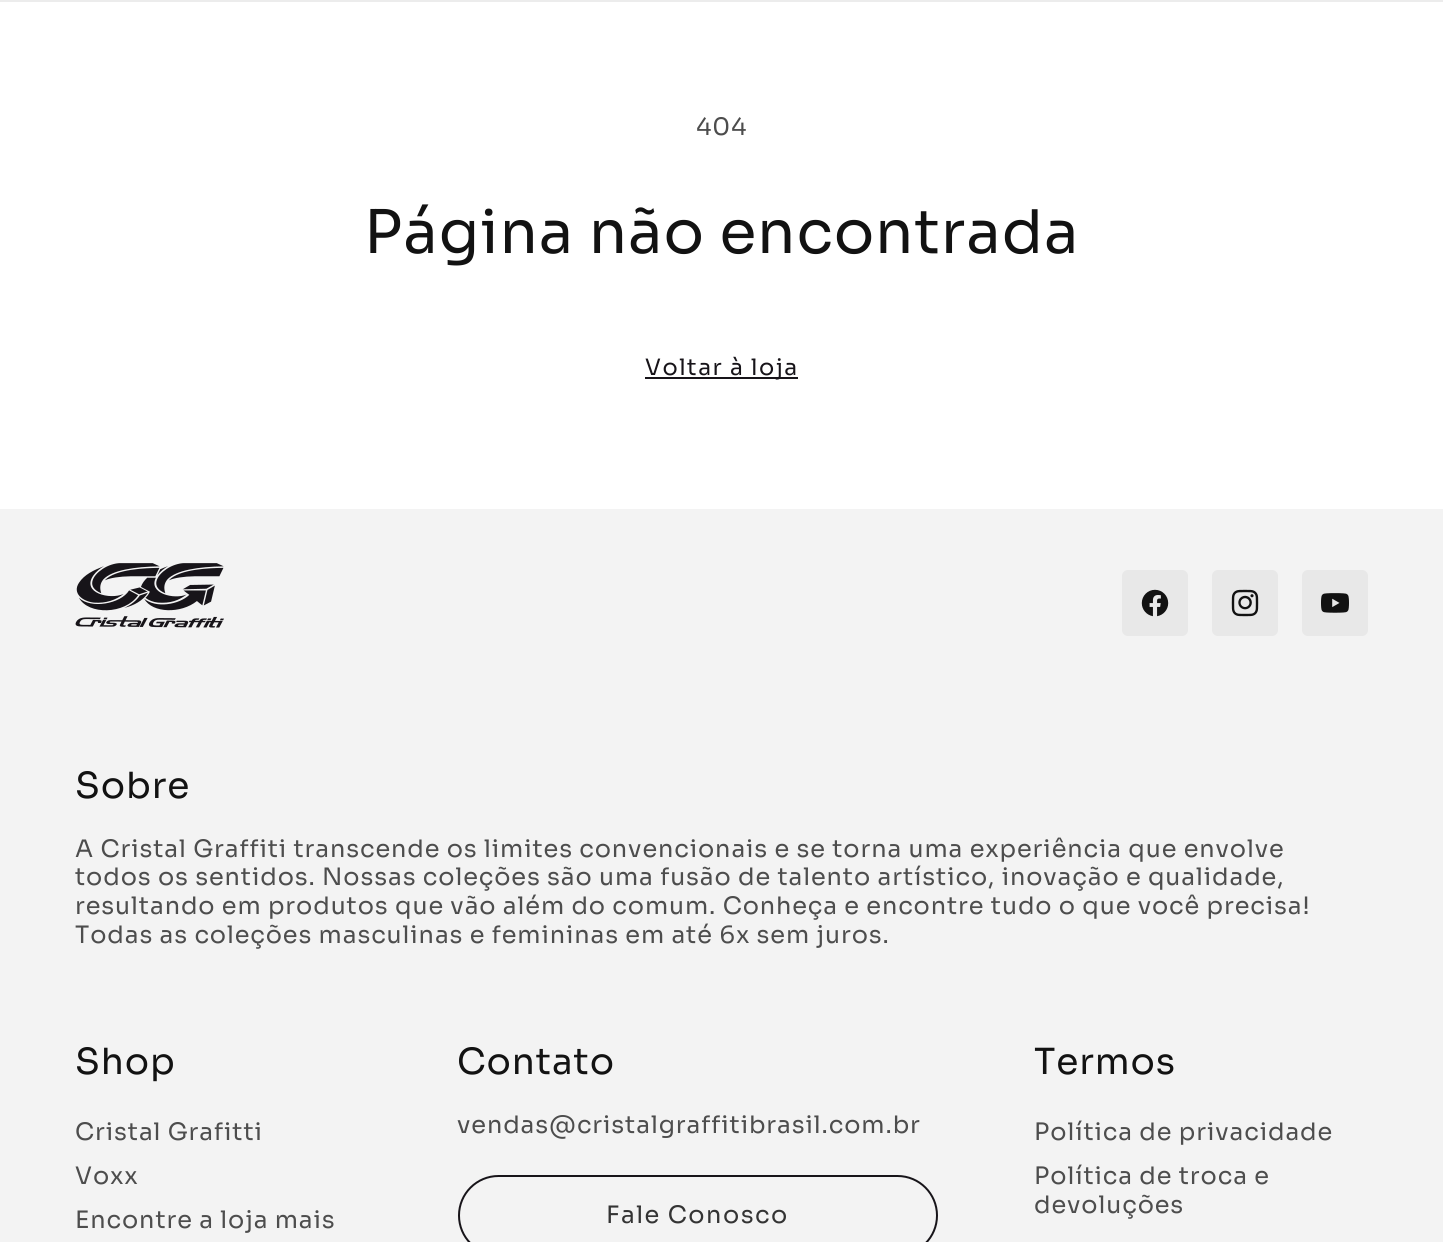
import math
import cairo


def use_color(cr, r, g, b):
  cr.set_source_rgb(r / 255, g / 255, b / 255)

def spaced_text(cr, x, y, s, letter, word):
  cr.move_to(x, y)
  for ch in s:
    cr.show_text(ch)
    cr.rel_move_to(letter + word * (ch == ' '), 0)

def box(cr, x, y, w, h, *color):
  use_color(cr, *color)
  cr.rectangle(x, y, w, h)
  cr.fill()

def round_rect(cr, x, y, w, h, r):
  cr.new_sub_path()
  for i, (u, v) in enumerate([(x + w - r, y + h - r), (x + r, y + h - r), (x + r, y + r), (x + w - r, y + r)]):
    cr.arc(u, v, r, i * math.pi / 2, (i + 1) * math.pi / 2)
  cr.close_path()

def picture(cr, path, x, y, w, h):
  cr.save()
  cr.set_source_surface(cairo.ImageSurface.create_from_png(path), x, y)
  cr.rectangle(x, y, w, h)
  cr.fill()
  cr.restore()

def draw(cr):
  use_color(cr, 255, 255, 255)
  cr.paint()
  box(cr, 0, 0, 1443, 2, 236, 236, 236)
  box(cr, 645, 377, 153, 2, 23, 20, 25)
  box(cr, 0, 509, 1443, 733, 243, 243, 243)
  picture(cr, "img_01.png", 75, 563, 149, 65)
  use_color(cr, 232, 232, 232)
  round_rect(cr, 1122, 570, 66, 66, 6)
  cr.fill()
  picture(cr, "img_02.png", 1141, 589, 28, 28)
  round_rect(cr, 1212, 570, 66, 66, 6)
  cr.fill()
  picture(cr, "img_03.png", 1231, 589, 28, 28)
  round_rect(cr, 1302, 570, 66, 66, 6)
  cr.fill()
  picture(cr, "img_04.png", 1321, 593, 28, 20)
  round_rect(cr, 459, 1176, 478, 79, 39.5)
  use_color(cr, 23, 20, 25)
  cr.stroke()
  cr.select_font_face("Sora")
  cr.set_font_size(24)
  use_color(cr, 77, 77, 77)
  spaced_text(cr, 696, 135, "404", 0.9, 0)
  cr.set_font_size(60)
  use_color(cr, 18, 18, 18)
  spaced_text(cr, 364, 253, "Página não encontrada", 0.9, 0)
  cr.set_font_size(22.5)
  use_color(cr, 23, 20, 25)
  spaced_text(cr, 645, 375, "Voltar à loja", 1.5, 0)
  cr.set_font_size(36)
  use_color(cr, 18, 18, 18)
  spaced_text(cr, 75, 798, "Sobre", 0.9, 0)
  cr.set_font_size(24)
  use_color(cr, 77, 77, 77)
  spaced_text(cr, 75, 857, "A Cristal Graffiti transcende os limites convencionais e se torna uma experiência que envolve", 0.9, 0)
  spaced_text(cr, 75, 885, "todos os sentidos. Nossas coleções são uma fusão de talento artístico, inovação e qualidade,", 0.9, 0)
  spaced_text(cr, 75, 914, "resultando em produtos que vão além do comum. Conheça e encontre tudo o que você precisa!", 0.9, 0)
  spaced_text(cr, 75, 943, "Todas as coleções masculinas e femininas em até 6x sem juros.", 0.9, 0)
  cr.set_font_size(36)
  use_color(cr, 18, 18, 18)
  spaced_text(cr, 75, 1074, "Shop", 0.9, 0)
  cr.set_font_size(24)
  use_color(cr, 77, 77, 77)
  spaced_text(cr, 75, 1140, "Cristal Grafitti", 0.9, 0)
  spaced_text(cr, 75, 1184, "Voxx", 0.9, 0)
  spaced_text(cr, 75, 1228, "Encontre a loja mais", 0.9, 0)
  cr.set_font_size(36)
  use_color(cr, 18, 18, 18)
  spaced_text(cr, 457, 1074, "Contato", 0.9, 0)
  cr.set_font_size(24)
  use_color(cr, 77, 77, 77)
  spaced_text(cr, 457, 1133, "vendas@cristalgraffitibrasil.com.br", 0.9, 0)
  use_color(cr, 52, 52, 52)
  spaced_text(cr, 606, 1223, "Fale Conosco", 1.5, 0)
  cr.set_font_size(36)
  use_color(cr, 18, 18, 18)
  spaced_text(cr, 1034, 1074, "Termos", 0.9, 0)
  cr.set_font_size(24)
  use_color(cr, 77, 77, 77)
  spaced_text(cr, 1034, 1140, "Política de privacidade", 0.9, 0)
  spaced_text(cr, 1034, 1184, "Política de troca e", 0.9, 0)
  spaced_text(cr, 1034, 1213, "devoluções", 0.9, 0)


surface = cairo.ImageSurface(cairo.FORMAT_RGB24, 1443, 1242)
cr = cairo.Context(surface)
options = cairo.FontOptions()
options.set_hint_metrics(cairo.HINT_METRICS_OFF)
options.set_hint_style(cairo.HINT_STYLE_NONE)
cr.set_font_options(options)
cr.set_miter_limit(4)
draw(cr)
surface.write_to_png("out.png")
